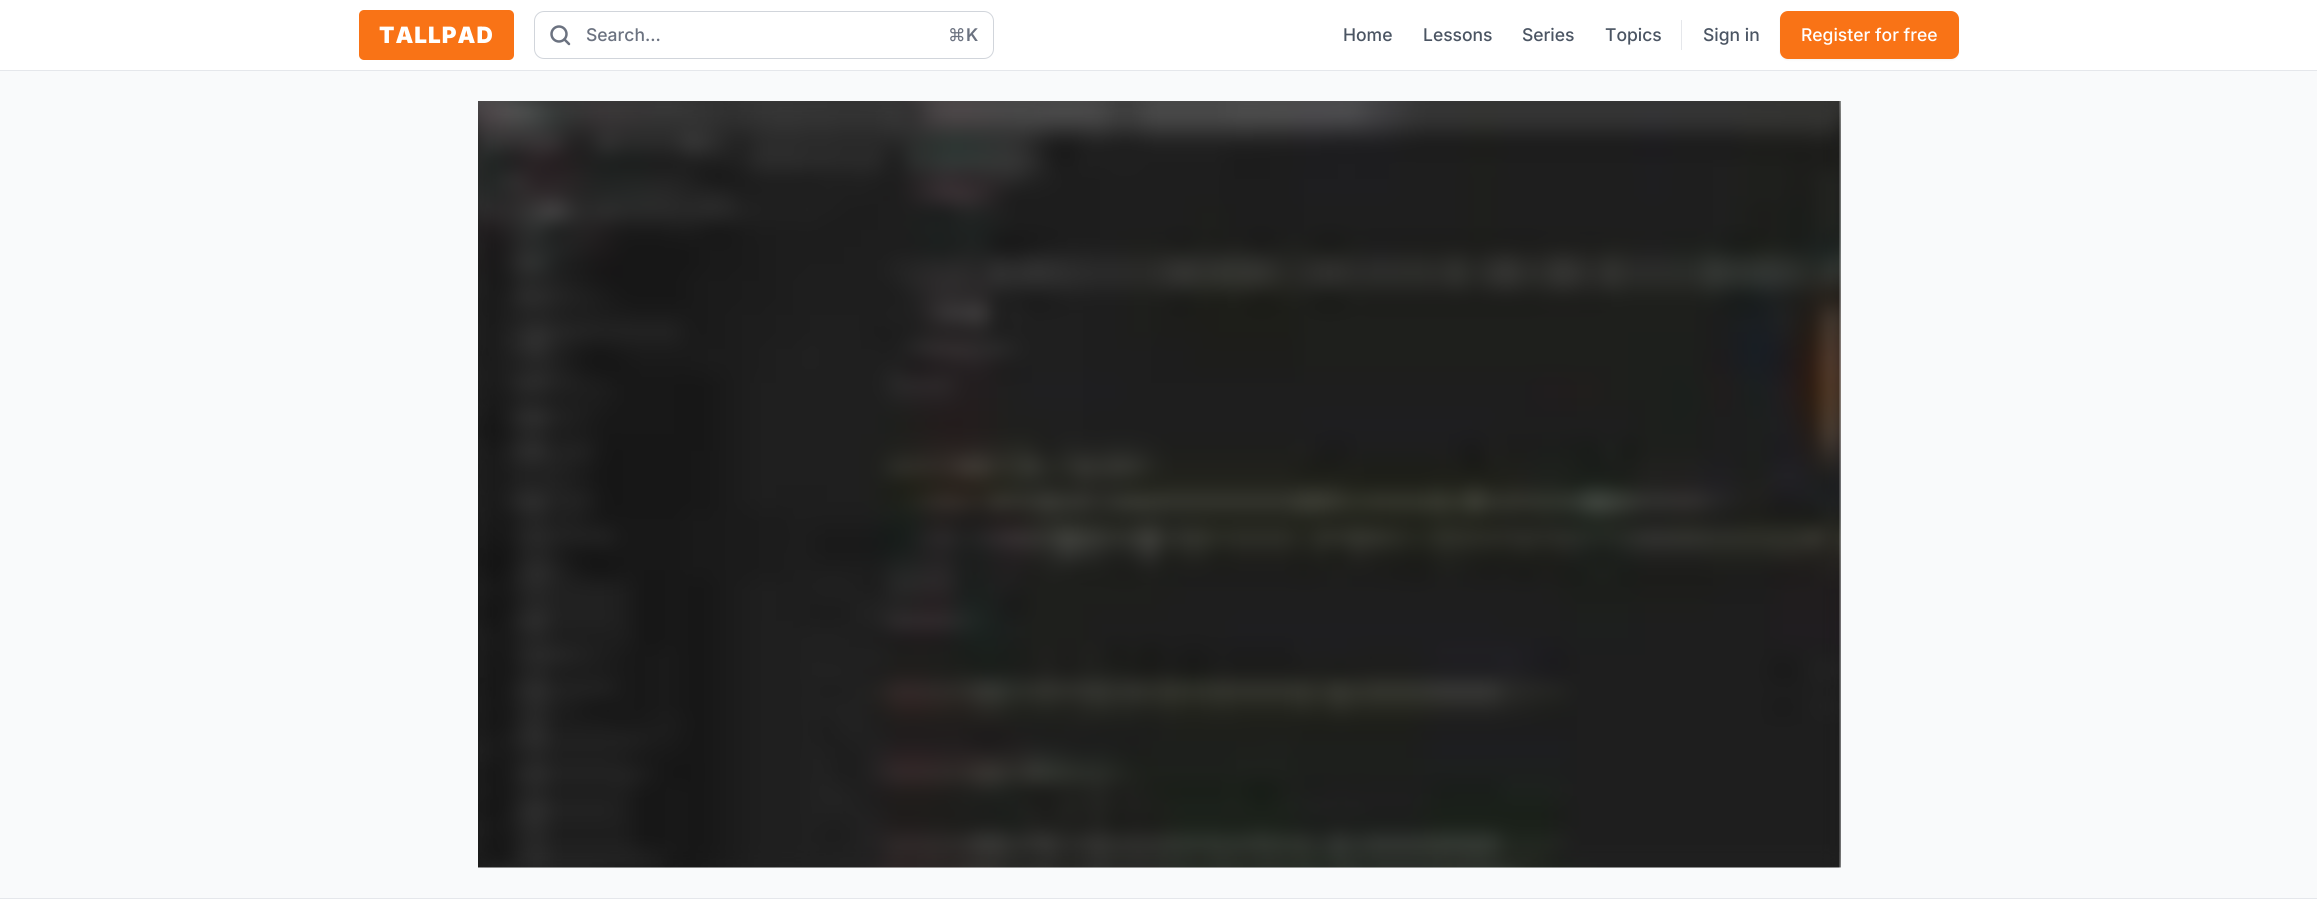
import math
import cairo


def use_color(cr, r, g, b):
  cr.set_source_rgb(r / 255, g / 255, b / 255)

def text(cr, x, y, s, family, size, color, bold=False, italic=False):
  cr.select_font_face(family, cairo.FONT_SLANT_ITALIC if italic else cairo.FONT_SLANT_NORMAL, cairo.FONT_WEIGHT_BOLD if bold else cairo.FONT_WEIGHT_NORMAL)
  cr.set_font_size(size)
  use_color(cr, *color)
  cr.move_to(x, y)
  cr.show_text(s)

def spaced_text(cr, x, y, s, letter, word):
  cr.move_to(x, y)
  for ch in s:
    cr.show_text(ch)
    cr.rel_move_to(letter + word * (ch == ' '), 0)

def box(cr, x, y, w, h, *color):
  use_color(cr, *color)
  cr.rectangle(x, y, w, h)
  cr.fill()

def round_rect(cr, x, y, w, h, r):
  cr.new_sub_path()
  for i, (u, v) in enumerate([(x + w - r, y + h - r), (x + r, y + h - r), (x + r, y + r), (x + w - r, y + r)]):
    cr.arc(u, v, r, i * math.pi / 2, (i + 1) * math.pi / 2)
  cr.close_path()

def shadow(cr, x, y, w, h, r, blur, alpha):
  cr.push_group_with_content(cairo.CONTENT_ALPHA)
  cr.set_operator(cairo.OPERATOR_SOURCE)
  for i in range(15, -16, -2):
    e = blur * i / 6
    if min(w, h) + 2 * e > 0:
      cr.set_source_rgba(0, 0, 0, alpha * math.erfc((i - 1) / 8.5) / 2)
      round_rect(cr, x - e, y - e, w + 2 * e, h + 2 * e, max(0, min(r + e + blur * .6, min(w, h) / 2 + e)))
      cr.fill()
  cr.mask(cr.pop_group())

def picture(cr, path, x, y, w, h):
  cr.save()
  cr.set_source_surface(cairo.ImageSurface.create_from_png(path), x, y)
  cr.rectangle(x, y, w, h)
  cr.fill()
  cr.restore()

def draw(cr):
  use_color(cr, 255, 255, 255)
  cr.paint()
  box(cr, 0, 70, 2317, 1, 229, 231, 235)
  use_color(cr, 249, 115, 22)
  round_rect(cr, 359, 10, 155, 50, 5)
  cr.fill()
  round_rect(cr, 534.5, 11.5, 459, 47, 9.5)
  use_color(cr, 209, 213, 219)
  cr.set_line_width(1)
  cr.stroke()
  cr.new_path()
  cr.move_to(569, 44)
  cr.line_to(564.5, 39.5)
  use_color(cr, 107, 114, 128)
  cr.set_line_width(2.5)
  cr.set_line_cap(cairo.LINE_CAP_ROUND)
  cr.set_line_join(cairo.LINE_JOIN_ROUND)
  cr.stroke()
  cr.arc(559, 34, 7.5, 0, 2 * math.pi)
  cr.set_line_cap(cairo.LINE_CAP_BUTT)
  cr.set_line_join(cairo.LINE_JOIN_MITER)
  cr.stroke()
  box(cr, 1681, 20, 1, 30, 229, 231, 235)
  use_color(cr, 0, 0, 0)
  shadow(cr, 1780, 13, 179, 47, 8, 1, 0.05)
  use_color(cr, 249, 115, 22)
  round_rect(cr, 1780, 11, 179, 48, 8)
  cr.fill()
  box(cr, 0, 71, 2317, 827, 249, 250, 251)
  box(cr, 0, 898, 2317, 1, 229, 231, 235)
  picture(cr, "img_01.png", 478, 101, 1363, 767)
  cr.select_font_face("Inter Black")
  cr.set_font_size(22.5)
  use_color(cr, 255, 255, 255)
  spaced_text(cr, 379, 43, "TALLPAD", 1, 0)
  text(cr, 586, 41, "Search...", "Inter Medium", 17.5, (107, 114, 128))
  text(cr, 948, 41, "⌘", "Inter", 17.5, (107, 114, 128))
  text(cr, 966, 41, "K", "Inter SemiBold", 17.5, (107, 114, 128))
  text(cr, 1343, 41, "Home", "Inter Medium", 17.5, (75, 85, 99))
  text(cr, 1423, 41, "Lessons", "Inter Medium", 17.5, (75, 85, 99))
  text(cr, 1522, 41, "Series", "Inter Medium", 17.5, (75, 85, 99))
  text(cr, 1605, 41, "Topics", "Inter Medium", 17.5, (75, 85, 99))
  text(cr, 1703, 41, "Sign in", "Inter Medium", 17.5, (75, 85, 99))
  text(cr, 1801, 41, "Register for free", "Inter Medium", 17.5, (255, 255, 255))


surface = cairo.ImageSurface(cairo.FORMAT_RGB24, 2317, 901)
cr = cairo.Context(surface)
options = cairo.FontOptions()
options.set_hint_metrics(cairo.HINT_METRICS_OFF)
options.set_hint_style(cairo.HINT_STYLE_NONE)
cr.set_font_options(options)
cr.set_miter_limit(4)
draw(cr)
surface.write_to_png("out.png")
